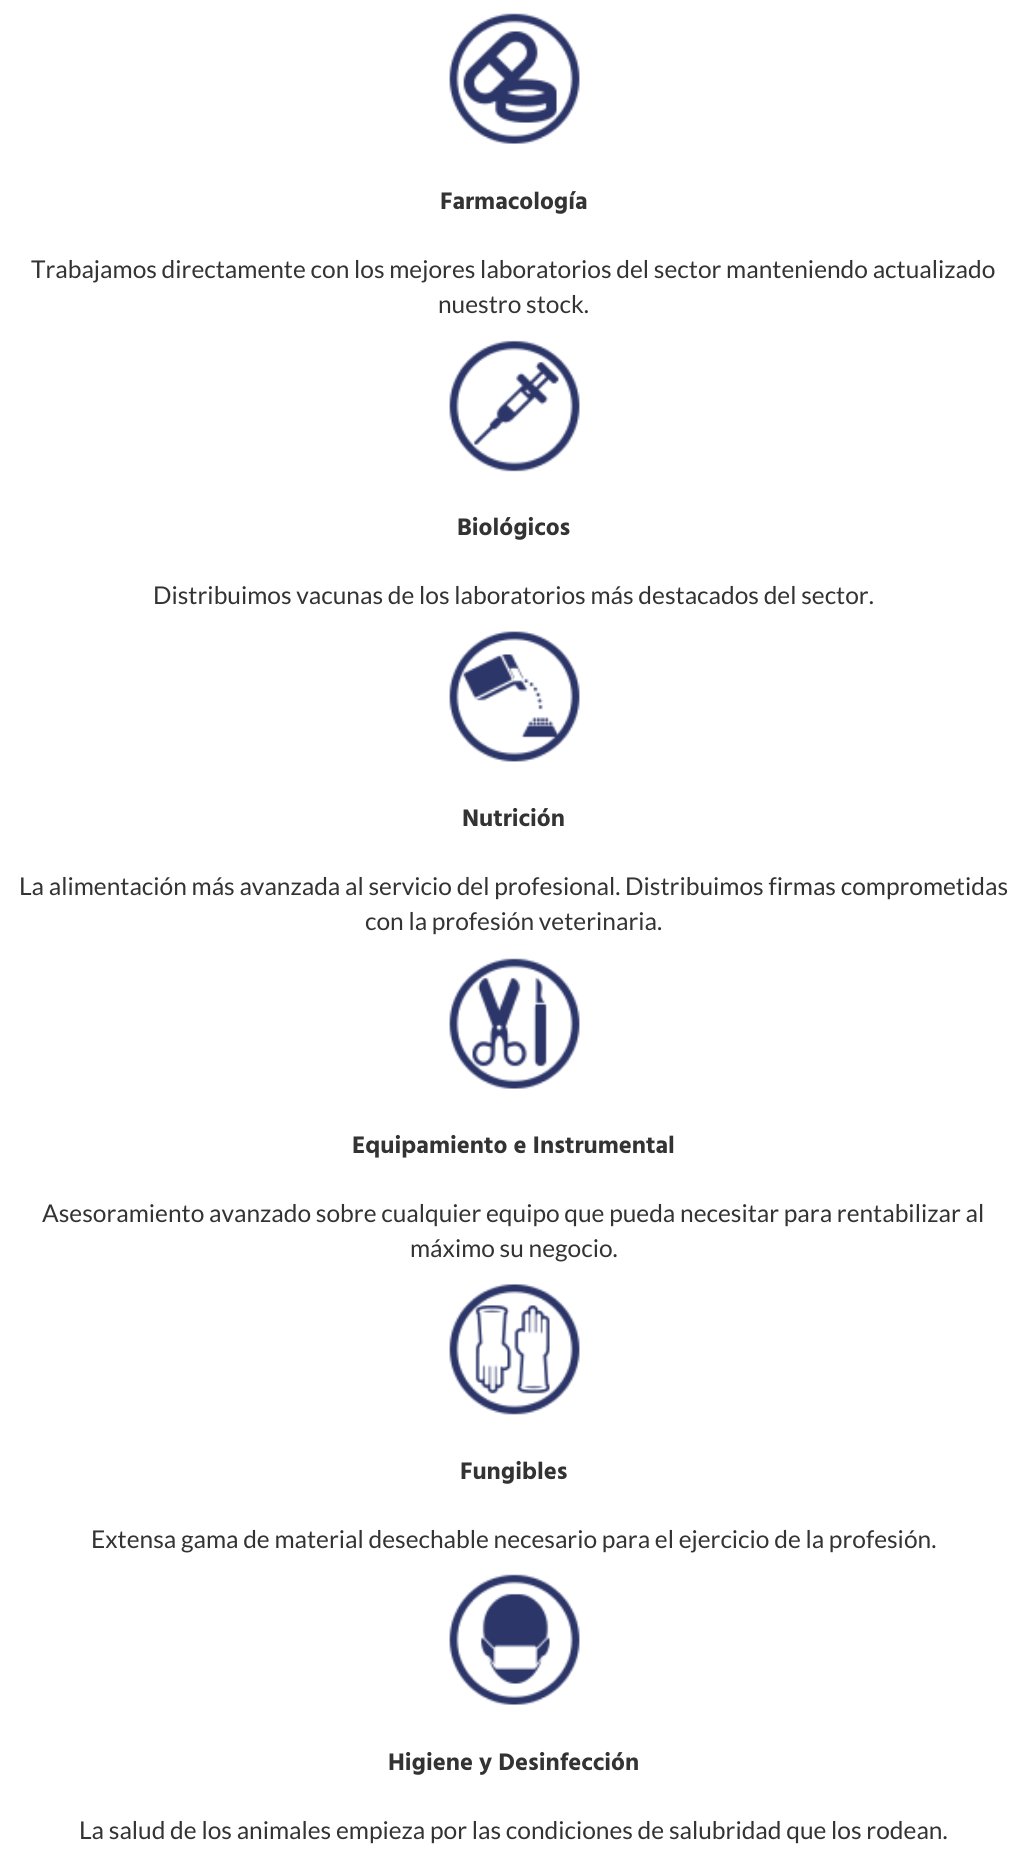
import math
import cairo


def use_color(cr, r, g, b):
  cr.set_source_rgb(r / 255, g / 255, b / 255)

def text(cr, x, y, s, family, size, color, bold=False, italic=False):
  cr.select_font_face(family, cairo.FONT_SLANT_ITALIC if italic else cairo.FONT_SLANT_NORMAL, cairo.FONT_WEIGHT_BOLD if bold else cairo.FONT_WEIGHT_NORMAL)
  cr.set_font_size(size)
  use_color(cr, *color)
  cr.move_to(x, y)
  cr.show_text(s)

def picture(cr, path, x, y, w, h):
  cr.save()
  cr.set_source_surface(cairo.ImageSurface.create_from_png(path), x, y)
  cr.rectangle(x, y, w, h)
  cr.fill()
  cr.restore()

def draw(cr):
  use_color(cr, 255, 255, 255)
  cr.paint()
  picture(cr, "img_01.png", 449, 13, 131, 131)
  picture(cr, "img_02.png", 449, 340, 131, 132)
  picture(cr, "img_03.png", 449, 631, 131, 131)
  picture(cr, "img_04.png", 449, 958, 131, 131)
  picture(cr, "img_05.png", 449, 1284, 131, 131)
  picture(cr, "img_06.png", 449, 1574, 131, 131)
  text(cr, 440, 209, "Farmacología", "Hind", 24.5, (51, 51, 51), bold=True)
  text(cr, 31, 278, "Trabajamos directamente con los mejores laboratorios del sector manteniendo actualizado", "Lato", 24.5, (51, 51, 51))
  text(cr, 438, 313, "nuestro stock.", "Lato", 24.5, (51, 51, 51))
  text(cr, 457, 535, "Biológicos", "Hind", 24.5, (51, 51, 51), bold=True)
  text(cr, 153, 604, "Distribuimos vacunas de los laboratorios más destacados del sector.", "Lato", 24.5, (51, 51, 51))
  text(cr, 462, 826, "Nutrición", "Hind", 24.5, (51, 51, 51), bold=True)
  text(cr, 19, 895, "La alimentación más avanzada al servicio del profesional. Distribuimos firmas comprometidas", "Lato", 24.5, (51, 51, 51))
  text(cr, 365, 930, "con la profesión veterinaria.", "Lato", 24.5, (51, 51, 51))
  text(cr, 352, 1153, "Equipamiento e Instrumental", "Hind", 24.5, (51, 51, 51), bold=True)
  text(cr, 42, 1222, "Asesoramiento avanzado sobre cualquier equipo que pueda necesitar para rentabilizar al", "Lato", 24.5, (51, 51, 51))
  text(cr, 410, 1257, "máximo su negocio.", "Lato", 24.5, (51, 51, 51))
  text(cr, 460, 1479, "Fungibles", "Hind", 24.5, (51, 51, 51), bold=True)
  text(cr, 91, 1548, "Extensa gama de material desechable necesario para el ejercicio de la profesión.", "Lato", 24.5, (51, 51, 51))
  text(cr, 388, 1770, "Higiene y Desinfección", "Hind", 24.5, (51, 51, 51), bold=True)
  text(cr, 79, 1839, "La salud de los animales empieza por las condiciones de salubridad que los rodean.", "Lato", 24.5, (51, 51, 51))


surface = cairo.ImageSurface(cairo.FORMAT_RGB24, 1027, 1861)
cr = cairo.Context(surface)
options = cairo.FontOptions()
options.set_hint_metrics(cairo.HINT_METRICS_OFF)
options.set_hint_style(cairo.HINT_STYLE_NONE)
cr.set_font_options(options)
cr.set_miter_limit(4)
draw(cr)
surface.write_to_png("out.png")
